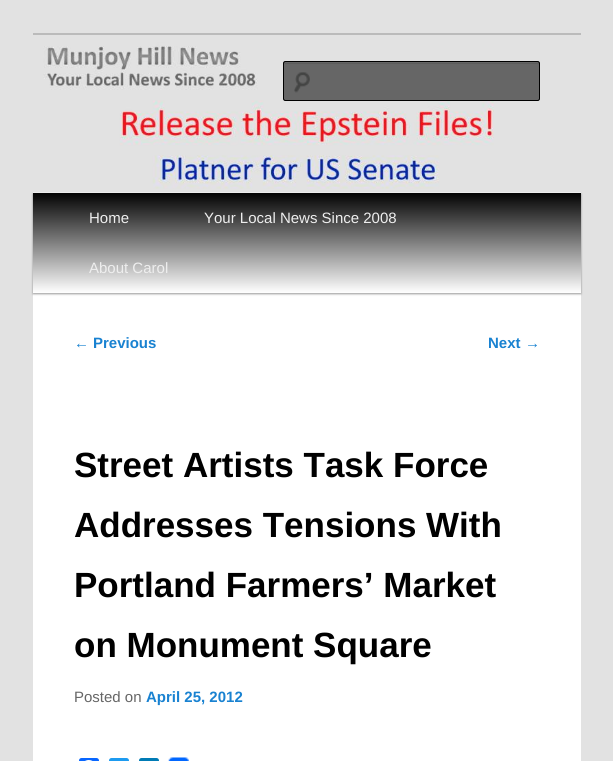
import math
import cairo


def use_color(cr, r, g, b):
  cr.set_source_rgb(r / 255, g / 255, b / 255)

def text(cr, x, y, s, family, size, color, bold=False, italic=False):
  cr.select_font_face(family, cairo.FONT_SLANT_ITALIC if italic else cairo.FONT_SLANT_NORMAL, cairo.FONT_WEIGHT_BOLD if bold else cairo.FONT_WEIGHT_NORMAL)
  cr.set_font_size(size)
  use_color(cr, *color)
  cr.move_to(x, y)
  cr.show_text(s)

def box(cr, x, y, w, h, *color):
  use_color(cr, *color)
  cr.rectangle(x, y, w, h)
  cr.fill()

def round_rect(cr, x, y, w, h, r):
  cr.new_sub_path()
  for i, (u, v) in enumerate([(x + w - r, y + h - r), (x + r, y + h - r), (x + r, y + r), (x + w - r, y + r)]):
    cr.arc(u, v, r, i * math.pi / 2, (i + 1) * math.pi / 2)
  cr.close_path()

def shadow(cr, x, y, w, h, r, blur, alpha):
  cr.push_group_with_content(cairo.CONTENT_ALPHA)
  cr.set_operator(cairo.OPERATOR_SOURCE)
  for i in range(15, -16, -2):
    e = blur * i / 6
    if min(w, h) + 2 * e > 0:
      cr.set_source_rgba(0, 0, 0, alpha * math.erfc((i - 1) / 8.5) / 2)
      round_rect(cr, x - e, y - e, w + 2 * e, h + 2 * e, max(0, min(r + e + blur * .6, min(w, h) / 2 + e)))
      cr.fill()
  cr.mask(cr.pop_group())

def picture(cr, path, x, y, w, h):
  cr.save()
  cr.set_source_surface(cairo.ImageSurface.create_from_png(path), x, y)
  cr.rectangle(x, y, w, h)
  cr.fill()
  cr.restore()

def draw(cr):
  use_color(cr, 226, 226, 226)
  cr.paint()
  box(cr, 33, 192, 548, 569, 255, 255, 255)
  box(cr, 33, 33, 548, 2, 187, 187, 187)
  use_color(cr, 0, 0, 0)
  shadow(cr, 33, 194, 548, 100, 0, 1, 0.4)
  picture(cr, "img_01.png", 33, 35, 548, 158)
  use_color(cr, 102, 102, 102)
  round_rect(cr, 283, 61, 257, 40, 2.5)
  cr.fill()
  picture(cr, "img_02.png", 294, 72, 16, 21)
  use_color(cr, 92, 92, 92)
  cr.new_path()
  cr.move_to(285, 64)
  cr.line_to(538, 64)
  cr.line_to(539, 65)
  cr.line_to(539, 63)
  cr.line_to(285, 63)
  cr.curve_to(284, 63, 284, 64, 284, 65)
  cr.curve_to(284, 64, 284, 64, 285, 64)
  cr.close_path()
  cr.fill()
  round_rect(cr, 283.5, 61.5, 256, 39, 2)
  use_color(cr, 0, 0, 0)
  cr.set_line_width(1)
  cr.stroke()
  gradient = cairo.LinearGradient(307, 192, 307, 293)
  gradient.add_color_stop_rgba(0, 0, 0, 0, 1)
  gradient.add_color_stop_rgba(1, 1, 1, 1, 1)
  cr.set_source(gradient)
  cr.rectangle(33, 193, 548, 100)
  cr.fill()
  use_color(cr, 8, 102, 255)
  round_rect(cr, 79, 758, 20, 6, 2.5)
  cr.fill()
  picture(cr, "img_03.png", 85, 760, 8, 1)
  use_color(cr, 29, 155, 240)
  round_rect(cr, 109, 758, 20, 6, 2.5)
  cr.fill()
  use_color(cr, 0, 123, 181)
  round_rect(cr, 139, 758, 20, 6, 2.5)
  cr.fill()
  picture(cr, "img_04.png", 168, 757, 21, 4)
  text(cr, 89, 223, "Home", "Liberation Sans", 15, (238, 238, 238))
  text(cr, 204, 223, "Your Local News Since 2008", "Liberation Sans", 15, (238, 238, 238))
  text(cr, 89, 273, "About Carol", "Liberation Sans", 15, (238, 238, 238))
  text(cr, 74, 348, "←", "Liberation Sans", 15, (25, 130, 209))
  text(cr, 93, 348, "Previous", "Liberation Sans", 15, (25, 130, 209), bold=True)
  text(cr, 488, 348, "Next", "Liberation Sans", 15, (25, 130, 209), bold=True)
  text(cr, 525, 348, "→", "Liberation Sans", 15, (25, 130, 209))
  text(cr, 74, 477, "Street Artists Task Force", "Liberation Sans", 35, (0, 0, 0), bold=True)
  text(cr, 74, 537, "Addresses Tensions With", "Liberation Sans", 35, (0, 0, 0), bold=True)
  text(cr, 74, 597, "Portland Farmers’ Market", "Liberation Sans", 35, (0, 0, 0), bold=True)
  text(cr, 74, 657, "on Monument Square", "Liberation Sans", 35, (0, 0, 0), bold=True)
  text(cr, 74, 702, "Posted on", "Liberation Sans", 15, (102, 102, 102))
  text(cr, 146, 702, "April 25, 2012", "Liberation Sans", 15, (25, 130, 209), bold=True)


surface = cairo.ImageSurface(cairo.FORMAT_RGB24, 613, 761)
cr = cairo.Context(surface)
options = cairo.FontOptions()
options.set_hint_metrics(cairo.HINT_METRICS_OFF)
options.set_hint_style(cairo.HINT_STYLE_NONE)
cr.set_font_options(options)
cr.set_miter_limit(4)
draw(cr)
surface.write_to_png("out.png")
